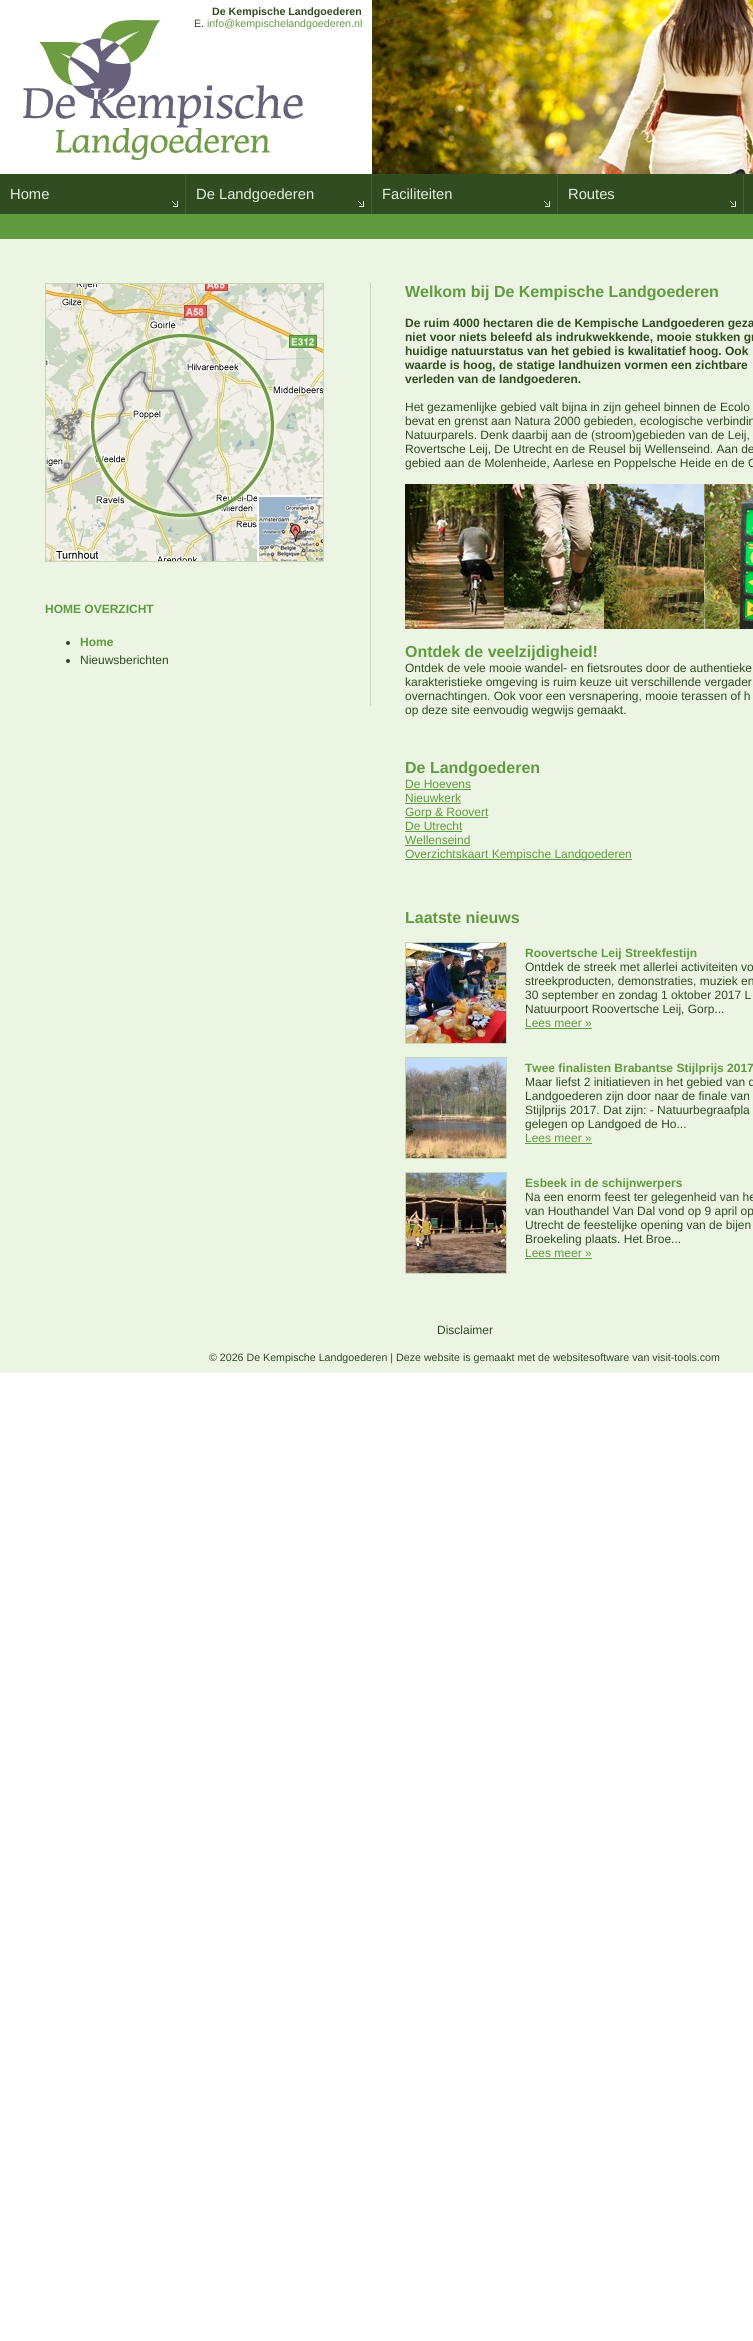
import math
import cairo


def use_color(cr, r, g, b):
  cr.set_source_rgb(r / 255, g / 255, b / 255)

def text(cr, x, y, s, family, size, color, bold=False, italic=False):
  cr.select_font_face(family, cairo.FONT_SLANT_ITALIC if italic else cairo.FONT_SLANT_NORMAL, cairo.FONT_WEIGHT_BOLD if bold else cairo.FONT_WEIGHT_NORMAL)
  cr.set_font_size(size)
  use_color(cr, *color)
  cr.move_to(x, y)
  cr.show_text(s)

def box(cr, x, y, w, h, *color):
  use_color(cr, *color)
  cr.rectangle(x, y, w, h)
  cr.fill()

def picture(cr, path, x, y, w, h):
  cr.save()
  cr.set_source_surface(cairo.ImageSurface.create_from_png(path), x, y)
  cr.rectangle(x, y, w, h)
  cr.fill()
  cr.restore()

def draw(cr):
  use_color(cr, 255, 255, 255)
  cr.paint()
  picture(cr, "img_01.png", 23, 19, 280, 142)
  picture(cr, "img_02.png", 372, 0, 381, 174)
  box(cr, 0, 174, 753, 40, 48, 76, 32)
  box(cr, 185, 174, 1, 40, 66, 96, 47)
  picture(cr, "img_03.png", 172, 201, 6, 6)
  box(cr, 371, 174, 1, 40, 66, 96, 47)
  picture(cr, "img_03.png", 358, 201, 6, 6)
  box(cr, 557, 174, 1, 40, 66, 96, 47)
  picture(cr, "img_03.png", 544, 201, 6, 6)
  box(cr, 743, 174, 1, 40, 66, 96, 47)
  picture(cr, "img_03.png", 730, 201, 6, 6)
  box(cr, 0, 214, 753, 25, 97, 155, 63)
  box(cr, 0, 239, 753, 1134, 236, 244, 228)
  box(cr, 370, 283, 1, 423, 198, 216, 178)
  cr.rectangle(45.5, 283.5, 278, 278)
  cr.set_line_width(1)
  cr.stroke()
  picture(cr, "img_04.png", 46, 284, 277, 277)
  use_color(cr, 48, 76, 32)
  cr.arc(68, 643, 2, 0, 2 * math.pi)
  cr.fill()
  cr.arc(68, 661, 2, 0, 2 * math.pi)
  cr.fill()
  picture(cr, "img_05.png", 405, 484, 348, 145)
  box(cr, 405, 789, 66, 1, 97, 155, 63)
  box(cr, 405, 803, 56, 1, 97, 155, 63)
  box(cr, 405, 817, 83, 1, 97, 155, 63)
  box(cr, 405, 831, 57, 1, 97, 155, 63)
  box(cr, 405, 845, 65, 1, 97, 155, 63)
  box(cr, 405, 859, 227, 1, 97, 155, 63)
  cr.rectangle(405.5, 942.5, 101, 101)
  use_color(cr, 198, 216, 178)
  cr.stroke()
  picture(cr, "img_06.png", 406, 943, 100, 100)
  box(cr, 525, 1028, 67, 1, 97, 155, 63)
  cr.rectangle(405.5, 1057.5, 101, 101)
  use_color(cr, 198, 216, 178)
  cr.stroke()
  picture(cr, "img_07.png", 406, 1058, 100, 100)
  box(cr, 525, 1143, 67, 1, 97, 155, 63)
  cr.rectangle(405.5, 1172.5, 101, 101)
  use_color(cr, 198, 216, 178)
  cr.stroke()
  picture(cr, "img_08.png", 406, 1173, 100, 100)
  box(cr, 525, 1258, 67, 1, 97, 155, 63)
  text(cr, 212, 15, "De Kempische Landgoederen", "Liberation Sans", 10.65, (48, 76, 32), bold=True)
  text(cr, 194, 27, "E.", "Liberation Sans", 10.65, (48, 76, 32))
  text(cr, 207, 27, "info@kempischelandgoederen.nl", "Liberation Sans", 10.65, (97, 155, 63))
  text(cr, 10, 199, "Home", "Liberation Sans", 14.75, (230, 239, 223))
  text(cr, 196, 199, "De Landgoederen", "Liberation Sans", 14.75, (230, 239, 223))
  text(cr, 382, 199, "Faciliteiten", "Liberation Sans", 14.75, (230, 239, 223))
  text(cr, 568, 199, "Routes", "Liberation Sans", 14.75, (230, 239, 223))
  text(cr, 45, 613, "HOME OVERZICHT", "Liberation Sans", 12, (97, 155, 63), bold=True)
  text(cr, 80, 646, "Home", "Liberation Sans", 12, (97, 155, 63), bold=True)
  text(cr, 80, 664, "Nieuwsberichten", "Liberation Sans", 12, (48, 76, 32))
  text(cr, 405, 297, "Welkom bij De Kempische Landgoederen", "Liberation Sans", 16, (97, 155, 63), bold=True)
  text(cr, 405, 327, "De ruim 4000 hectaren die de Kempische Landgoederen geza", "Liberation Sans", 12, (48, 76, 32), bold=True)
  text(cr, 405, 341, "niet voor niets beleefd als indrukwekkende, mooie stukken gr", "Liberation Sans", 12, (48, 76, 32), bold=True)
  text(cr, 405, 355, "huidige natuurstatus van het gebied is kwalitatief hoog. Ook", "Liberation Sans", 12, (48, 76, 32), bold=True)
  text(cr, 405, 369, "waarde is hoog, de statige landhuizen vormen een zichtbare", "Liberation Sans", 12, (48, 76, 32), bold=True)
  text(cr, 405, 383, "verleden van de landgoederen.", "Liberation Sans", 12, (48, 76, 32), bold=True)
  text(cr, 405, 411, "Het gezamenlijke gebied valt bijna in zijn geheel binnen de Ecolo", "Liberation Sans", 12, (48, 76, 32))
  text(cr, 405, 425, "bevat en grenst aan Natura 2000 gebieden, ecologische verbindin", "Liberation Sans", 12, (48, 76, 32))
  text(cr, 405, 439, "Natuurparels. Denk daarbij aan de (stroom)gebieden van de Leij,", "Liberation Sans", 12, (48, 76, 32))
  text(cr, 405, 453, "Rovertsche Leij, De Utrecht en de Reusel bij Wellenseind. Aan de", "Liberation Sans", 12, (48, 76, 32))
  text(cr, 405, 467, "gebied aan de Molenheide, Aarlese en Poppelsche Heide en de G", "Liberation Sans", 12, (48, 76, 32))
  text(cr, 405, 657, "Ontdek de veelzijdigheid!", "Liberation Sans", 16, (97, 155, 63), bold=True)
  text(cr, 405, 672, "Ontdek de vele mooie wandel- en fietsroutes door de authentieke", "Liberation Sans", 12, (48, 76, 32))
  text(cr, 405, 686, "karakteristieke omgeving is ruim keuze uit verschillende vergader", "Liberation Sans", 12, (48, 76, 32))
  text(cr, 405, 700, "overnachtingen. Ook voor een versnapering, mooie terassen of h", "Liberation Sans", 12, (48, 76, 32))
  text(cr, 405, 714, "op deze site eenvoudig wegwijs gemaakt.", "Liberation Sans", 12, (48, 76, 32))
  text(cr, 405, 773, "De Landgoederen", "Liberation Sans", 16, (97, 155, 63), bold=True)
  text(cr, 405, 788, "De Hoevens", "Liberation Sans", 12, (97, 155, 63))
  text(cr, 405, 802, "Nieuwkerk", "Liberation Sans", 12, (97, 155, 63))
  text(cr, 405, 816, "Gorp & Roovert", "Liberation Sans", 12, (97, 155, 63))
  text(cr, 405, 830, "De Utrecht", "Liberation Sans", 12, (97, 155, 63))
  text(cr, 405, 844, "Wellenseind", "Liberation Sans", 12, (97, 155, 63))
  text(cr, 405, 858, "Overzichtskaart Kempische Landgoederen", "Liberation Sans", 12, (97, 155, 63))
  text(cr, 405, 923, "Laatste nieuws", "Liberation Sans", 16, (97, 155, 63), bold=True)
  text(cr, 525, 957, "Roovertsche Leij Streekfestijn", "Liberation Sans", 12, (97, 155, 63), bold=True)
  text(cr, 525, 971, "Ontdek de streek met allerlei activiteiten vo", "Liberation Sans", 12, (48, 76, 32))
  text(cr, 525, 985, "streekproducten, demonstraties, muziek en", "Liberation Sans", 12, (48, 76, 32))
  text(cr, 525, 999, "30 september en zondag 1 oktober 2017 L", "Liberation Sans", 12, (48, 76, 32))
  text(cr, 525, 1013, "Natuurpoort Roovertsche Leij, Gorp...", "Liberation Sans", 12, (48, 76, 32))
  text(cr, 525, 1027, "Lees meer »", "Liberation Sans", 12, (97, 155, 63))
  text(cr, 525, 1072, "Twee finalisten Brabantse Stijlprijs 2017", "Liberation Sans", 12, (97, 155, 63), bold=True)
  text(cr, 525, 1086, "Maar liefst 2 initiatieven in het gebied van d", "Liberation Sans", 12, (48, 76, 32))
  text(cr, 525, 1100, "Landgoederen zijn door naar de finale van", "Liberation Sans", 12, (48, 76, 32))
  text(cr, 525, 1114, "Stijlprijs 2017. Dat zijn: - Natuurbegraafpla", "Liberation Sans", 12, (48, 76, 32))
  text(cr, 525, 1128, "gelegen op Landgoed de Ho...", "Liberation Sans", 12, (48, 76, 32))
  text(cr, 525, 1142, "Lees meer »", "Liberation Sans", 12, (97, 155, 63))
  text(cr, 525, 1187, "Esbeek in de schijnwerpers", "Liberation Sans", 12, (97, 155, 63), bold=True)
  text(cr, 525, 1201, "Na een enorm feest ter gelegenheid van he", "Liberation Sans", 12, (48, 76, 32))
  text(cr, 525, 1215, "van Houthandel Van Dal vond op 9 april op", "Liberation Sans", 12, (48, 76, 32))
  text(cr, 525, 1229, "Utrecht de feestelijke opening van de bijen", "Liberation Sans", 12, (48, 76, 32))
  text(cr, 525, 1243, "Broekeling plaats. Het Broe...", "Liberation Sans", 12, (48, 76, 32))
  text(cr, 525, 1257, "Lees meer »", "Liberation Sans", 12, (97, 155, 63))
  text(cr, 437, 1334, "Disclaimer", "Liberation Sans", 12, (48, 76, 32))
  text(cr, 209, 1361, "© 2026 De Kempische Landgoederen | Deze website is gemaakt met de websitesoftware van visit-tools.com", "Liberation Sans", 10.65, (48, 76, 32))


surface = cairo.ImageSurface(cairo.FORMAT_RGB24, 753, 2341)
cr = cairo.Context(surface)
options = cairo.FontOptions()
options.set_hint_metrics(cairo.HINT_METRICS_OFF)
options.set_hint_style(cairo.HINT_STYLE_NONE)
cr.set_font_options(options)
cr.set_miter_limit(4)
draw(cr)
surface.write_to_png("out.png")
